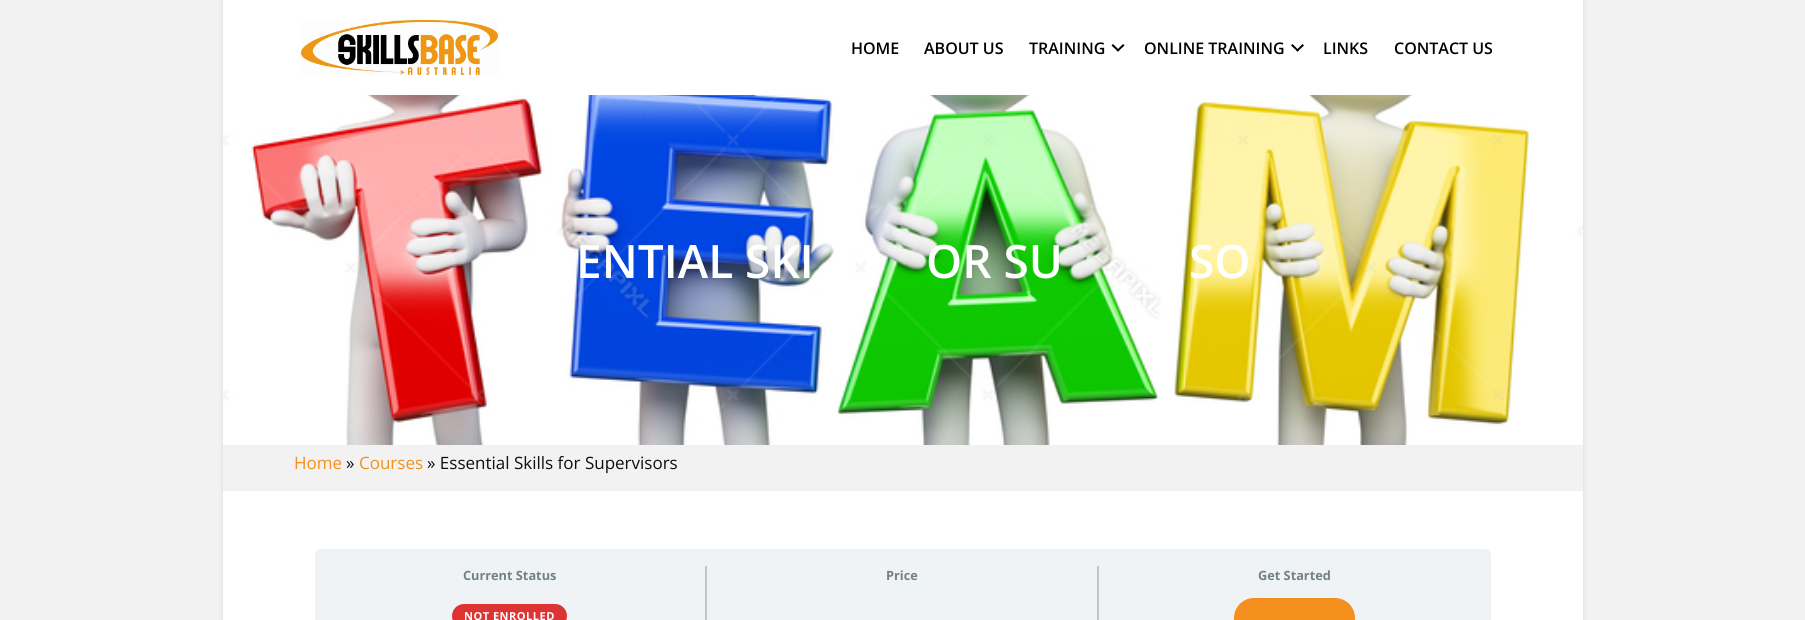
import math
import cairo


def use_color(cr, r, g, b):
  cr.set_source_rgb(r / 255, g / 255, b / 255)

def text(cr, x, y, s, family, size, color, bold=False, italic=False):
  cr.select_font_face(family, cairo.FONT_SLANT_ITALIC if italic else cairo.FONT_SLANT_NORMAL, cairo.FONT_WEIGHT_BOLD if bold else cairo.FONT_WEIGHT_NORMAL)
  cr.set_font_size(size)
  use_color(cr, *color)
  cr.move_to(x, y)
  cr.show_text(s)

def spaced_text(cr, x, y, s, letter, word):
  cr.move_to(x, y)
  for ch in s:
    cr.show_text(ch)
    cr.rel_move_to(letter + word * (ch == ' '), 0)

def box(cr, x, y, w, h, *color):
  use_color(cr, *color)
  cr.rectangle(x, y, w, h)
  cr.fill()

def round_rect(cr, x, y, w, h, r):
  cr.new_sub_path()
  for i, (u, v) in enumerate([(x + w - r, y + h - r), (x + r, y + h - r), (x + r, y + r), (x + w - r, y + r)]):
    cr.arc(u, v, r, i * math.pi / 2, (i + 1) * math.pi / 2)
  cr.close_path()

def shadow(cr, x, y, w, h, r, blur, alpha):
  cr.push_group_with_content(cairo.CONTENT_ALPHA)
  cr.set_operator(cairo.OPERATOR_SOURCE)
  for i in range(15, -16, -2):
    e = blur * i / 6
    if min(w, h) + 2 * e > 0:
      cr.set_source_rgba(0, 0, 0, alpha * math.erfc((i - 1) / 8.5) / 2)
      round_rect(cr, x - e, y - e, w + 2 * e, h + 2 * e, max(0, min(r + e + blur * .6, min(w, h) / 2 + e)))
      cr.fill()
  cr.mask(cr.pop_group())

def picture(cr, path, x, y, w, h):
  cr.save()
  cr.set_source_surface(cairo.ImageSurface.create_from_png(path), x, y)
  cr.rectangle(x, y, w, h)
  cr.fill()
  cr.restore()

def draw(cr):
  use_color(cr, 242, 242, 242)
  cr.paint()
  cr.save()
  cr.set_fill_rule(cairo.FILL_RULE_EVEN_ODD)
  cr.new_path()
  cr.move_to(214, 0)
  cr.line_to(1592, 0)
  cr.line_to(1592, 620)
  cr.line_to(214, 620)
  cr.close_path()
  cr.move_to(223, 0)
  cr.line_to(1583, 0)
  cr.line_to(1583, 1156)
  cr.line_to(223, 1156)
  cr.close_path()
  cr.clip()
  use_color(cr, 217, 217, 217)
  shadow(cr, 223, 0, 1360, 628, 0, 2.5, 1)
  cr.restore()
  box(cr, 223, 0, 1360, 95, 255, 255, 255)
  picture(cr, "img_01.png", 301, 20, 197, 55)
  use_color(cr, 0, 0, 0)
  cr.new_path()
  cr.move_to(1123, 44)
  cr.line_to(1124.5, 45.5)
  cr.line_to(1118, 51.5)
  cr.line_to(1116.5, 50.5)
  cr.close_path()
  cr.fill()
  cr.new_path()
  cr.move_to(1113, 44)
  cr.line_to(1119.5, 50.5)
  cr.line_to(1118, 51.5)
  cr.line_to(1111.5, 45.5)
  cr.close_path()
  cr.fill()
  cr.new_path()
  cr.move_to(1302.5, 44)
  cr.line_to(1304, 45.5)
  cr.line_to(1297.5, 51.5)
  cr.line_to(1296, 50.5)
  cr.close_path()
  cr.fill()
  cr.new_path()
  cr.move_to(1292.5, 44)
  cr.line_to(1299, 50.5)
  cr.line_to(1297.5, 51.5)
  cr.line_to(1291, 45.5)
  cr.close_path()
  cr.fill()
  picture(cr, "img_02.png", 223, 95, 1360, 350)
  box(cr, 223, 491, 1360, 129, 255, 255, 255)
  use_color(cr, 240, 243, 246)
  round_rect(cr, 315, 549, 1176, 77, 6)
  cr.fill()
  box(cr, 705, 566, 2, 54, 190, 197, 203)
  use_color(cr, 221, 51, 51)
  round_rect(cr, 452, 604, 115, 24, 12)
  cr.fill()
  box(cr, 1097, 566, 2, 54, 190, 197, 203)
  use_color(cr, 244, 144, 29)
  round_rect(cr, 1234, 598, 121, 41, 20)
  cr.fill()
  text(cr, 851, 54, "HOME", "Open Sans SemiBold", 16, (0, 0, 0))
  text(cr, 924, 54, "ABOUT US", "Open Sans SemiBold", 16, (0, 0, 0))
  text(cr, 1029, 54, "TRAINING", "Open Sans SemiBold", 16, (0, 0, 0))
  text(cr, 1144, 54, "ONLINE TRAINING", "Open Sans SemiBold", 16, (0, 0, 0))
  text(cr, 1323, 54, "LINKS", "Open Sans SemiBold", 16, (0, 0, 0))
  text(cr, 1394, 54, "CONTACT US", "Open Sans SemiBold", 16, (0, 0, 0))
  text(cr, 576, 278, "ENTIAL SKI", "Open Sans SemiBold", 46, (255, 255, 255))
  text(cr, 926, 278, "OR SU", "Open Sans SemiBold", 46, (255, 255, 255))
  text(cr, 1189, 278, "SO", "Open Sans SemiBold", 46, (255, 255, 255))
  text(cr, 294, 469, "Home", "Open Sans", 17, (244, 144, 29))
  text(cr, 346, 469, "»", "Open Sans", 17, (15, 15, 15))
  text(cr, 359, 469, "Courses", "Open Sans", 17, (244, 144, 29))
  text(cr, 427, 469, "» Essential Skills for Supervisors", "Open Sans", 17, (15, 15, 15))
  text(cr, 463, 580, "Current Status", "Open Sans", 12.75, (114, 129, 136), bold=True)
  cr.set_font_size(11)
  use_color(cr, 255, 255, 255)
  spaced_text(cr, 464, 620, "NOT ENROLLED", 0.5, 0)
  text(cr, 886, 580, "Price", "Open Sans", 12.75, (114, 129, 136), bold=True)
  text(cr, 1258, 580, "Get Started", "Open Sans", 12.75, (114, 129, 136), bold=True)


surface = cairo.ImageSurface(cairo.FORMAT_RGB24, 1805, 620)
cr = cairo.Context(surface)
options = cairo.FontOptions()
options.set_hint_metrics(cairo.HINT_METRICS_OFF)
options.set_hint_style(cairo.HINT_STYLE_NONE)
cr.set_font_options(options)
cr.set_miter_limit(4)
draw(cr)
surface.write_to_png("out.png")
